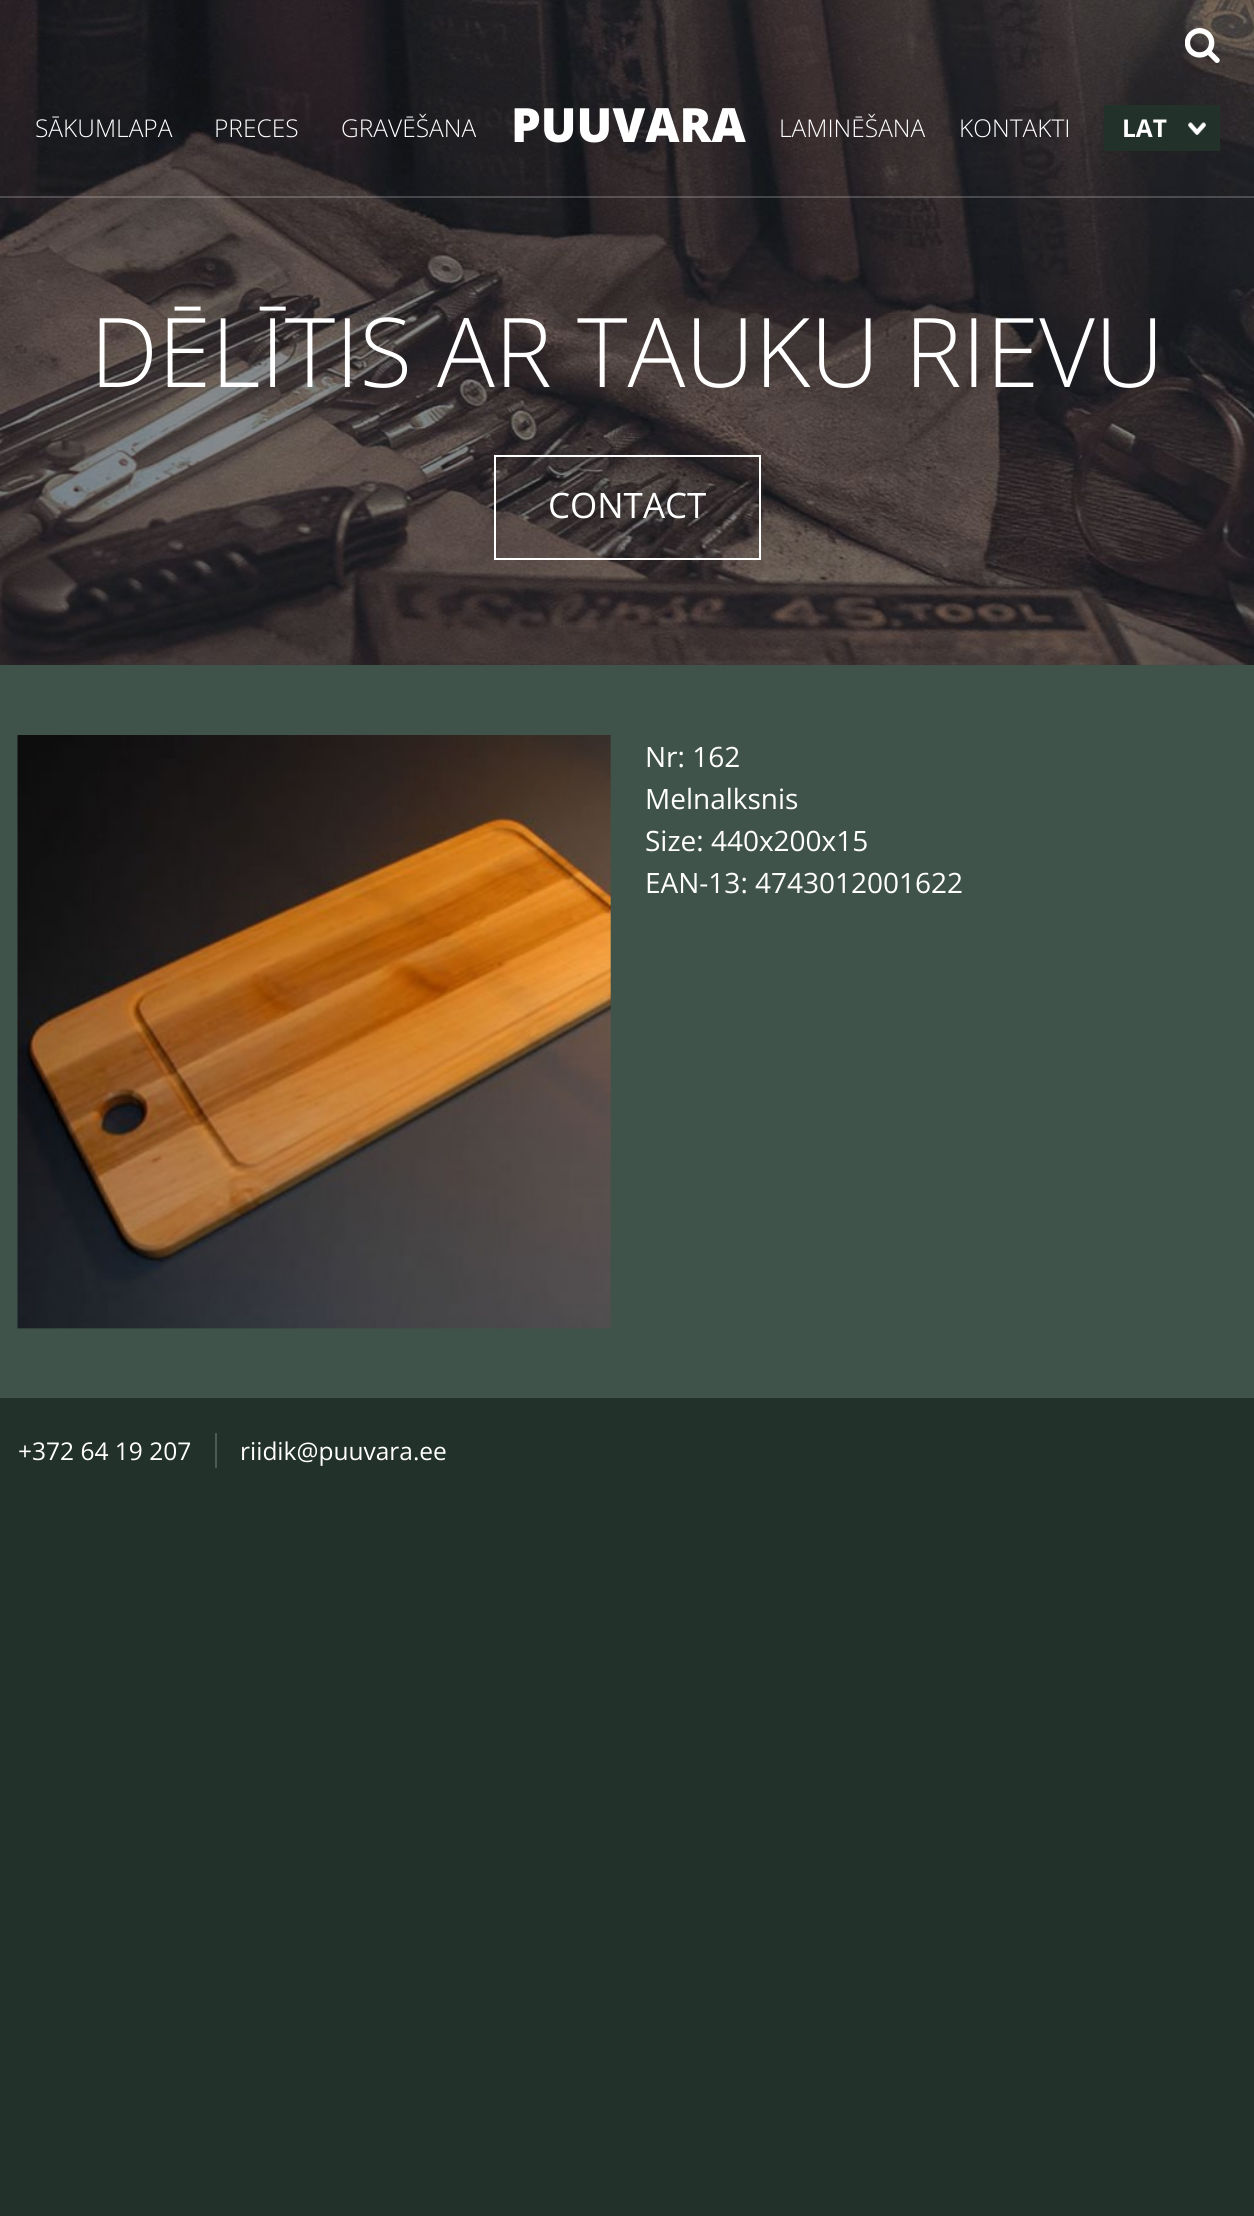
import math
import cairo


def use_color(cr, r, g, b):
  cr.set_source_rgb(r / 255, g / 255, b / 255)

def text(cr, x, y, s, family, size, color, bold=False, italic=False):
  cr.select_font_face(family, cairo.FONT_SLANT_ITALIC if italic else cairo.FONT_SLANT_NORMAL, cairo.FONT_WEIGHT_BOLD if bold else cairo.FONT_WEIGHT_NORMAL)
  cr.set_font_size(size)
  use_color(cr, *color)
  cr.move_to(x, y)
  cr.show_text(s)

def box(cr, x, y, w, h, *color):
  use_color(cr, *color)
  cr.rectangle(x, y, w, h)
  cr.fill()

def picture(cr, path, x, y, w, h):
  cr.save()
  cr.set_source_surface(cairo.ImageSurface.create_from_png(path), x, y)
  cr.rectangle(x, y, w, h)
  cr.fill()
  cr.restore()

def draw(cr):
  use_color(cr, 34, 49, 42)
  cr.paint()
  picture(cr, "img_03.png", 0, 0, 1254, 665)
  cr.set_source_rgba(1, 1, 1, 0.2)
  cr.rectangle(0, 196, 1254, 2)
  cr.fill()
  picture(cr, "img_01.png", 1185, 28, 35, 35)
  box(cr, 1104, 105, 116, 46, 34, 49, 42)
  picture(cr, "img_02.png", 1188, 122, 18, 13)
  cr.rectangle(495, 456, 265, 103)
  use_color(cr, 255, 255, 255)
  cr.stroke()
  box(cr, 0, 665, 1254, 733, 64, 83, 74)
  picture(cr, "img_04.png", 17, 735, 594, 594)
  box(cr, 215, 1433, 2, 35, 78, 90, 85)
  text(cr, 35, 137, "SĀKUMLAPA", "Open Sans Light", 24.5, (255, 255, 255))
  text(cr, 214, 137, "PRECES", "Open Sans Light", 24.5, (255, 255, 255))
  text(cr, 341, 137, "GRAVĒŠANA", "Open Sans Light", 24.5, (255, 255, 255))
  text(cr, 511, 142, "PUUVARA", "Open Sans ExtraBold", 47.25, (255, 255, 255))
  text(cr, 779, 137, "LAMINĒŠANA", "Open Sans Light", 24.5, (255, 255, 255))
  text(cr, 959, 137, "KONTAKTI", "Open Sans Light", 24.5, (255, 255, 255))
  text(cr, 1122, 137, "LAT", "Open Sans", 24.5, (255, 255, 255), bold=True)
  text(cr, 90, 387, "DĒLĪTIS AR TAUKU RIEVU", "Open Sans Light", 96.25, (255, 255, 255))
  text(cr, 548, 518, "CONTACT", "Open Sans", 35, (255, 255, 255))
  text(cr, 645, 767, "Nr: 162", "Open Sans", 28, (255, 255, 255))
  text(cr, 645, 809, "Melnalksnis", "Open Sans", 28, (255, 255, 255))
  text(cr, 645, 851, "Size: 440x200x15", "Open Sans", 28, (255, 255, 255))
  text(cr, 645, 893, "EAN-13: 4743012001622", "Open Sans", 28, (255, 255, 255))
  text(cr, 18, 1460, "+372 64 19 207", "Open Sans", 24.5, (255, 255, 255))
  text(cr, 240, 1460, "riidik@puuvara.ee", "Open Sans", 24.5, (255, 255, 255))


surface = cairo.ImageSurface(cairo.FORMAT_RGB24, 1254, 2216)
cr = cairo.Context(surface)
options = cairo.FontOptions()
options.set_hint_metrics(cairo.HINT_METRICS_OFF)
options.set_hint_style(cairo.HINT_STYLE_NONE)
cr.set_font_options(options)
cr.set_miter_limit(4)
draw(cr)
surface.write_to_png("out.png")
